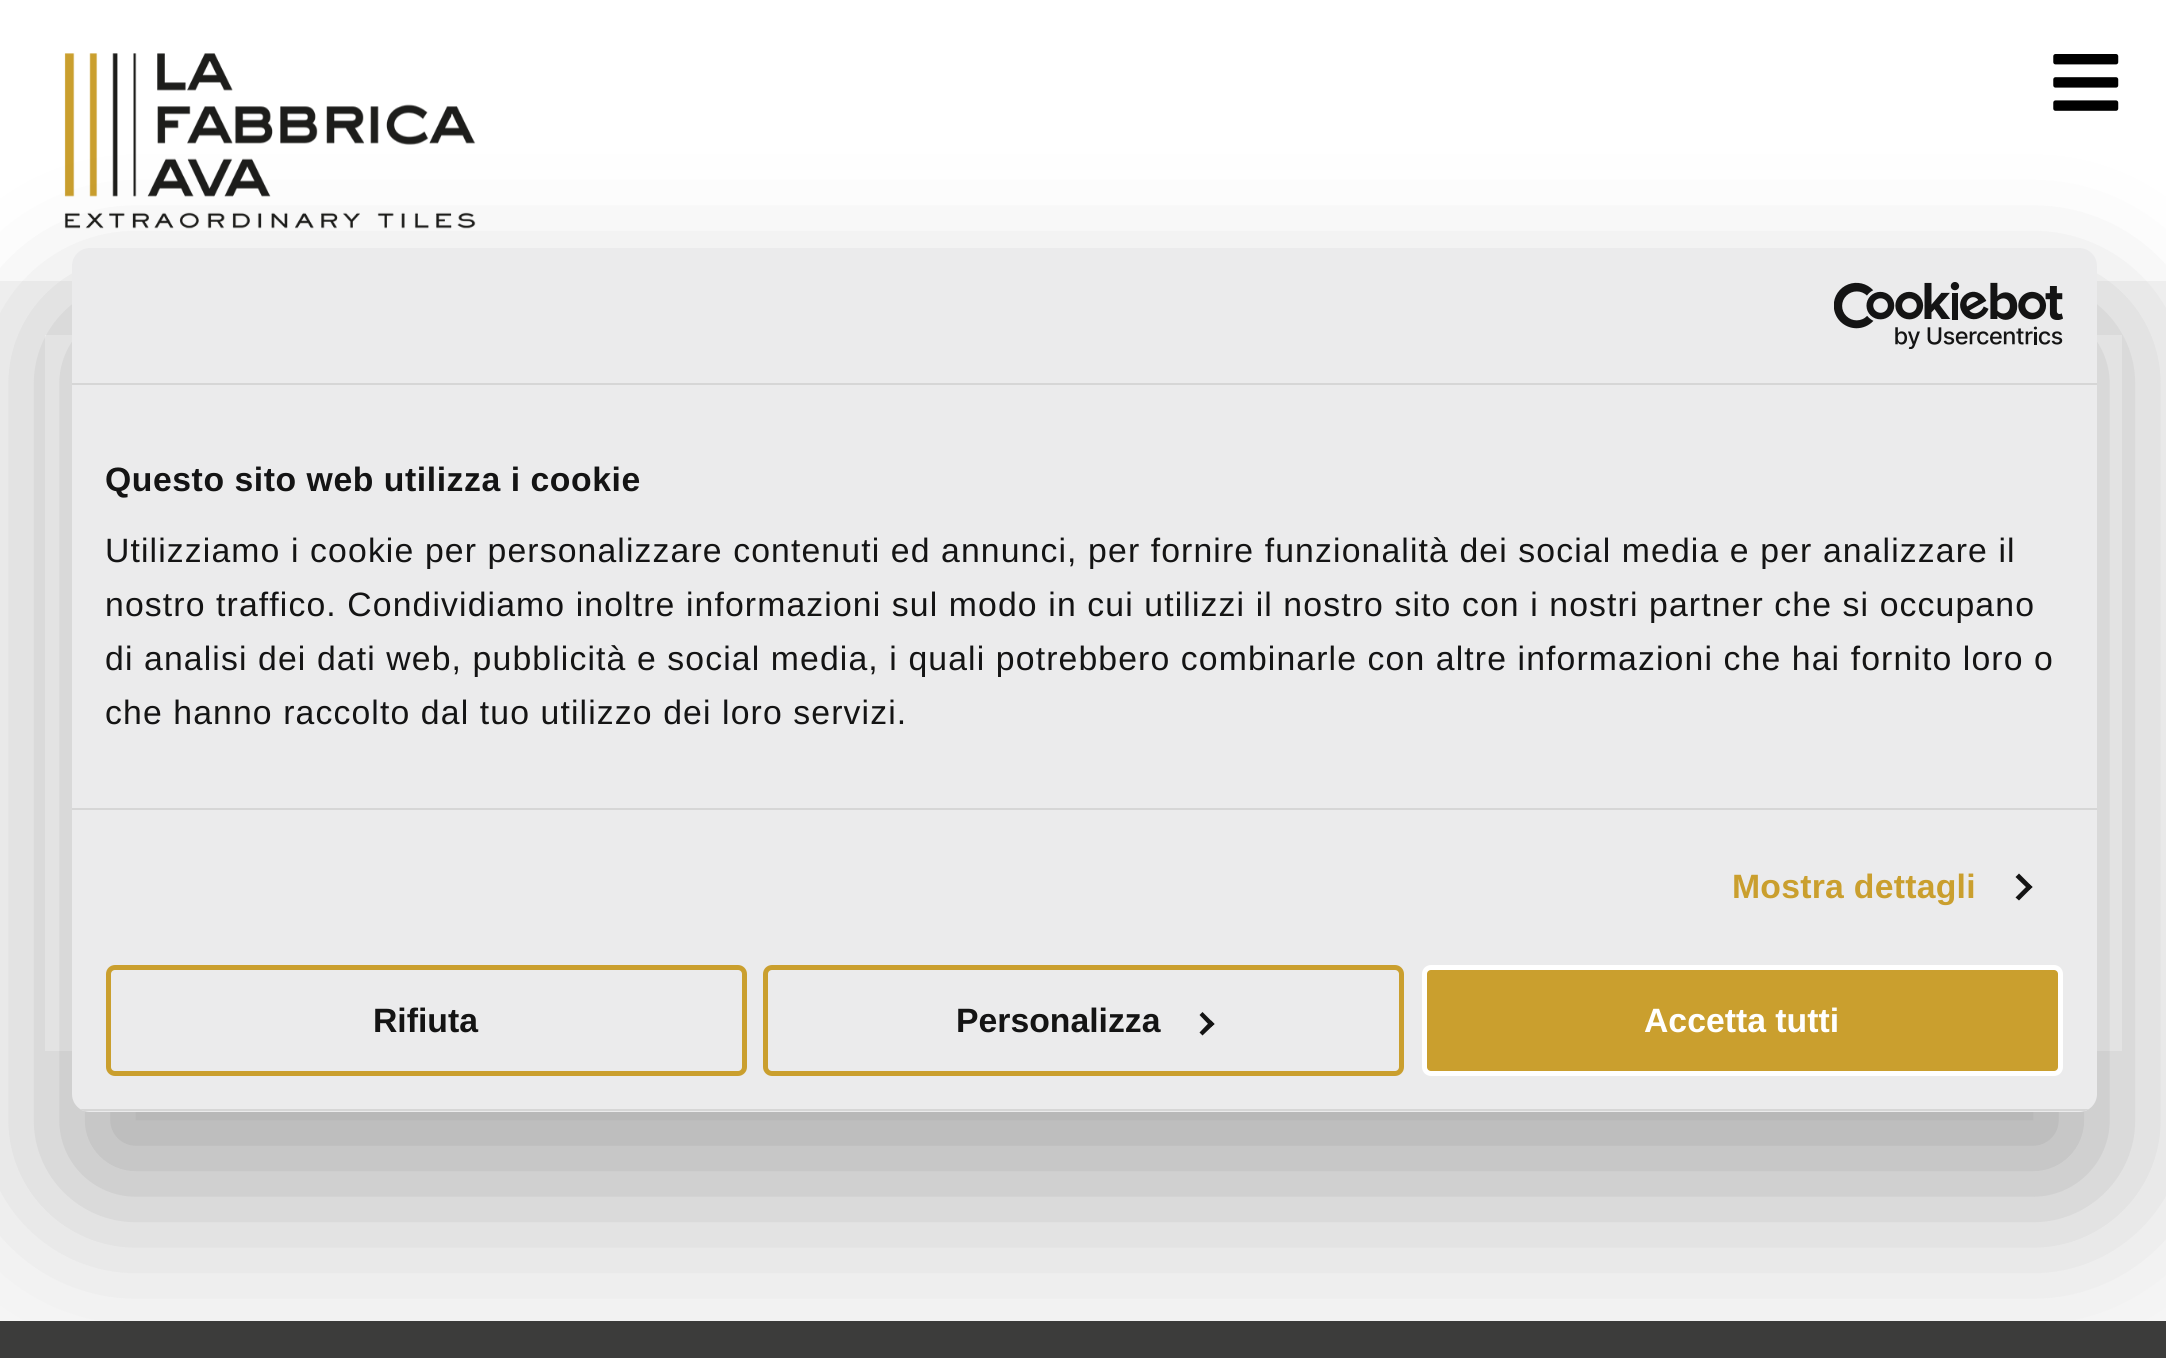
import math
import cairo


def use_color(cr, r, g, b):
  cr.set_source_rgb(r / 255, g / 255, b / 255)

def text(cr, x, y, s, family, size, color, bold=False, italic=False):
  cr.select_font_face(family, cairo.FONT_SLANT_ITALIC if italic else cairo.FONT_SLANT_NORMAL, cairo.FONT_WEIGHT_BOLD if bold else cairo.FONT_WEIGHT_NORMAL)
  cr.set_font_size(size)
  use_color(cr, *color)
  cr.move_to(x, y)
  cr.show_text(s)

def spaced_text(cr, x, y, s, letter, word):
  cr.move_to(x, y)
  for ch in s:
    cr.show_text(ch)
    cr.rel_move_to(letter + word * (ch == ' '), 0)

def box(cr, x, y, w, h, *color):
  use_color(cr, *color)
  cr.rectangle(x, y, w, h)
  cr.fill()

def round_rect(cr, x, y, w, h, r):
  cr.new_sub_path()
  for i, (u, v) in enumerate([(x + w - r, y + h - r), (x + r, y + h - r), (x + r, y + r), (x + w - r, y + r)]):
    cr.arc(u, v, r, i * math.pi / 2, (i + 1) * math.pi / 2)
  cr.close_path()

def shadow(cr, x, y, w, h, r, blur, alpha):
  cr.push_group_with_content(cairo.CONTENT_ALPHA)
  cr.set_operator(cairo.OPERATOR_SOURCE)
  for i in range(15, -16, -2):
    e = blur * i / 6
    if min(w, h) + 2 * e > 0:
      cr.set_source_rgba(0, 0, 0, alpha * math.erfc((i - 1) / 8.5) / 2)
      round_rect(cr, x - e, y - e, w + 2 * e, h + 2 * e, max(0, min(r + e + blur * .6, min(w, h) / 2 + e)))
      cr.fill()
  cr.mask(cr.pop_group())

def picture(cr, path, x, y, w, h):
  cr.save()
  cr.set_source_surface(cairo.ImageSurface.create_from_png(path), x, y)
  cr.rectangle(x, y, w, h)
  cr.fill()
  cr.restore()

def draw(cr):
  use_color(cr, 245, 245, 245)
  cr.paint()
  box(cr, 0, 0, 2166, 281, 255, 255, 255)
  picture(cr, "img_01.png", 64, 53, 412, 176)
  picture(cr, "img_02.png", 2053, 54, 66, 57)
  box(cr, 45, 335, 2077, 716, 255, 255, 255)
  box(cr, 0, 1321, 2166, 37, 60, 60, 59)
  use_color(cr, 0, 0, 0)
  shadow(cr, 72, 320, 2025, 864, 18, 76.5, 0.3)
  use_color(cr, 235, 235, 236)
  round_rect(cr, 72, 248, 2025, 864, 18)
  cr.fill()
  box(cr, 72, 383, 2025, 2, 214, 214, 214)
  picture(cr, "img_03.png", 1834, 282, 229, 67)
  box(cr, 72, 808, 2025, 2, 214, 214, 214)
  use_color(cr, 20, 20, 20)
  cr.new_path()
  cr.move_to(2019, 873.5)
  cr.line_to(2032.5, 887)
  cr.line_to(2029, 890)
  cr.line_to(2015.5, 877)
  cr.close_path()
  cr.fill()
  cr.new_path()
  cr.move_to(2029, 884)
  cr.line_to(2032.5, 887)
  cr.line_to(2019, 900.5)
  cr.line_to(2015.5, 897.5)
  cr.close_path()
  cr.fill()
  cr.save()
  round_rect(cr, 72, 248, 2025, 864, 18)
  cr.clip()
  box(cr, 72, 1109, 2025, 2, 214, 214, 214)
  cr.restore()
  round_rect(cr, 108.5, 967.5, 636, 106, 6.5)
  use_color(cr, 202, 159, 46)
  cr.set_line_width(5)
  cr.stroke()
  round_rect(cr, 765.5, 967.5, 636, 106, 6.5)
  cr.stroke()
  use_color(cr, 20, 20, 20)
  cr.new_path()
  cr.move_to(1202.5, 1012)
  cr.line_to(1214.5, 1024)
  cr.line_to(1211, 1027)
  cr.line_to(1199.5, 1015)
  cr.close_path()
  cr.fill()
  cr.new_path()
  cr.move_to(1211, 1020.5)
  cr.line_to(1214.5, 1024)
  cr.line_to(1202.5, 1035.5)
  cr.line_to(1199.5, 1032.5)
  cr.close_path()
  cr.fill()
  use_color(cr, 202, 159, 46)
  round_rect(cr, 1424.5, 967.5, 636, 106, 6.5)
  cr.fill_preserve()
  use_color(cr, 255, 255, 255)
  cr.stroke()
  cr.select_font_face("Liberation Sans", cairo.FONT_SLANT_NORMAL, cairo.FONT_WEIGHT_BOLD)
  cr.set_font_size(33.75)
  use_color(cr, 20, 20, 20)
  spaced_text(cr, 105, 491, "Questo sito web utilizza i cookie", 0.55, 0)
  cr.select_font_face("Liberation Sans")
  spaced_text(cr, 105, 562, "Utilizziamo i cookie per personalizzare contenuti ed annunci, per fornire funzionalità dei social media e per analizzare il", 1.12, 0)
  spaced_text(cr, 105, 616, "nostro traffico. Condividiamo inoltre informazioni sul modo in cui utilizzi il nostro sito con i nostri partner che si occupano", 1.12, 0)
  spaced_text(cr, 105, 670, "di analisi dei dati web, pubblicità e social media, i quali potrebbero combinarle con altre informazioni che hai fornito loro o", 1.12, 0)
  spaced_text(cr, 105, 724, "che hanno raccolto dal tuo utilizzo dei loro servizi.", 1.12, 0)
  cr.select_font_face("Liberation Sans", cairo.FONT_SLANT_NORMAL, cairo.FONT_WEIGHT_BOLD)
  use_color(cr, 202, 159, 46)
  spaced_text(cr, 1732, 898, "Mostra dettagli", 0.25, 0)
  text(cr, 373, 1032, "Rifiuta", "Liberation Sans", 33.75, (20, 20, 20), bold=True)
  text(cr, 956, 1032, "Personalizza", "Liberation Sans", 33.75, (20, 20, 20), bold=True)
  text(cr, 1644, 1032, "Accetta tutti", "Liberation Sans", 33.75, (255, 255, 255), bold=True)


surface = cairo.ImageSurface(cairo.FORMAT_RGB24, 2166, 1358)
cr = cairo.Context(surface)
options = cairo.FontOptions()
options.set_hint_metrics(cairo.HINT_METRICS_OFF)
options.set_hint_style(cairo.HINT_STYLE_NONE)
cr.set_font_options(options)
cr.set_miter_limit(4)
draw(cr)
surface.write_to_png("out.png")
